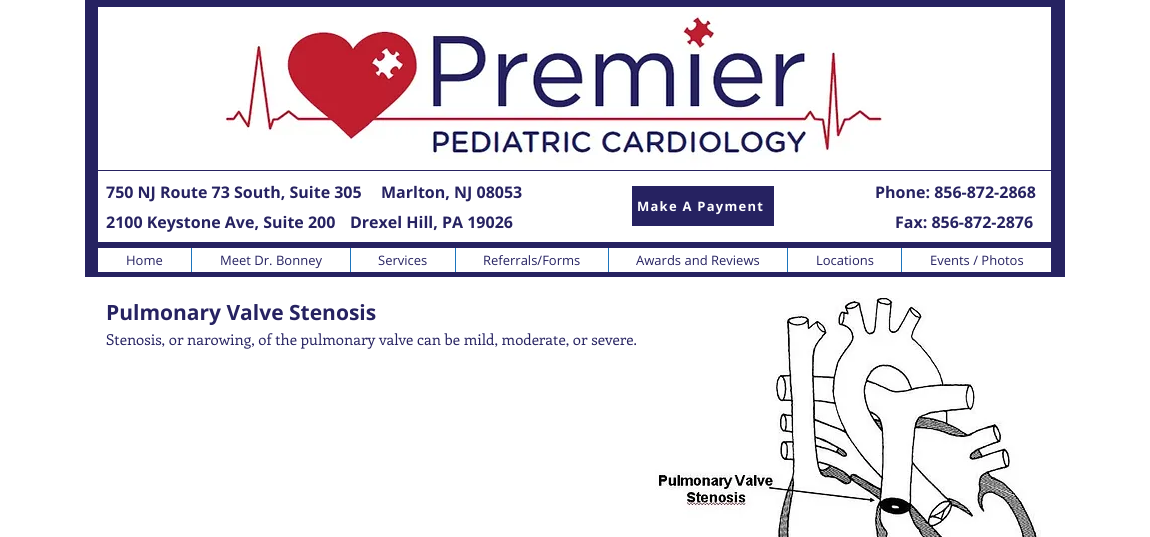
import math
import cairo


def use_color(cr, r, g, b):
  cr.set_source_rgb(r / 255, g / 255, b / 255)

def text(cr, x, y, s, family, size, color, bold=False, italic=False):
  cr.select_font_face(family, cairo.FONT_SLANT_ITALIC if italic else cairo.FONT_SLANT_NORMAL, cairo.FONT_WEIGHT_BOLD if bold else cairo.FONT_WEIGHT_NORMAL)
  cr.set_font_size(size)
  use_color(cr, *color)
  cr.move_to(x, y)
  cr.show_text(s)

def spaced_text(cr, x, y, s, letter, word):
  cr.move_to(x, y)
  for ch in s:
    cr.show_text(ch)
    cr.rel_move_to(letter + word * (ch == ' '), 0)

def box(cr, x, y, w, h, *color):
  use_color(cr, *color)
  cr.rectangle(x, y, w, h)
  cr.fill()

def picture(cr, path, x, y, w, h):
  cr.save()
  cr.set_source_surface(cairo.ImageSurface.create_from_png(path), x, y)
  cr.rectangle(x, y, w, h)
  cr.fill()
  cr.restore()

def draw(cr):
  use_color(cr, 255, 255, 255)
  cr.paint()
  box(cr, 85, 0, 980, 277, 38, 34, 97)
  picture(cr, "img_01.png", 98, 7, 953, 163)
  box(cr, 98, 171, 953, 71, 255, 255, 255)
  box(cr, 632, 186, 142, 40, 38, 34, 97)
  box(cr, 98, 248, 953, 24, 255, 255, 255)
  box(cr, 191, 248, 1, 24, 28, 117, 189)
  box(cr, 350, 248, 1, 24, 28, 117, 189)
  box(cr, 455, 248, 1, 24, 28, 117, 189)
  box(cr, 608, 248, 1, 24, 28, 117, 189)
  box(cr, 787, 248, 1, 24, 28, 117, 189)
  box(cr, 901, 248, 1, 24, 28, 117, 189)
  picture(cr, "img_02.png", 655, 298, 386, 239)
  text(cr, 106, 198, "750 NJ Route 73 South, Suite 305", "Open Sans", 16, (38, 34, 97), bold=True)
  text(cr, 381, 198, "Marlton, NJ 08053", "Open Sans", 16, (38, 34, 97), bold=True)
  text(cr, 875, 198, "Phone: 856-872-2868", "Open Sans", 16, (38, 34, 97), bold=True)
  cr.set_font_size(13)
  use_color(cr, 255, 255, 255)
  spaced_text(cr, 637, 211, "Make A Payment", 1.25, 0)
  text(cr, 106, 228, "2100 Keystone Ave, Suite 200", "Open Sans", 16, (38, 34, 97), bold=True)
  text(cr, 350, 228, "Drexel Hill, PA 19026", "Open Sans", 16, (38, 34, 97), bold=True)
  text(cr, 895, 228, "Fax: 856-872-2876", "Open Sans", 16, (38, 34, 97), bold=True)
  text(cr, 126, 265, "Home", "Open Sans", 13, (38, 34, 97))
  text(cr, 220, 265, "Meet Dr. Bonney", "Open Sans", 13, (38, 34, 97))
  text(cr, 378, 265, "Services", "Open Sans", 13, (38, 34, 97))
  text(cr, 483, 265, "Referrals/Forms", "Open Sans", 13, (38, 34, 97))
  text(cr, 636, 265, "Awards and Reviews", "Open Sans", 13, (38, 34, 97))
  text(cr, 816, 265, "Locations", "Open Sans", 13, (38, 34, 97))
  text(cr, 930, 265, "Events / Photos", "Open Sans", 13, (38, 34, 97))
  text(cr, 106, 320, "Pulmonary Valve Stenosis", "Open Sans", 21, (38, 34, 97), bold=True)
  text(cr, 106, 345, "Stenosis, or narowing, of the pulmonary valve can be mild, moderate, or severe.", "Enriqueta", 15, (38, 34, 97))


surface = cairo.ImageSurface(cairo.FORMAT_RGB24, 1150, 537)
cr = cairo.Context(surface)
options = cairo.FontOptions()
options.set_hint_metrics(cairo.HINT_METRICS_OFF)
options.set_hint_style(cairo.HINT_STYLE_NONE)
cr.set_font_options(options)
cr.set_miter_limit(4)
draw(cr)
surface.write_to_png("out.png")
